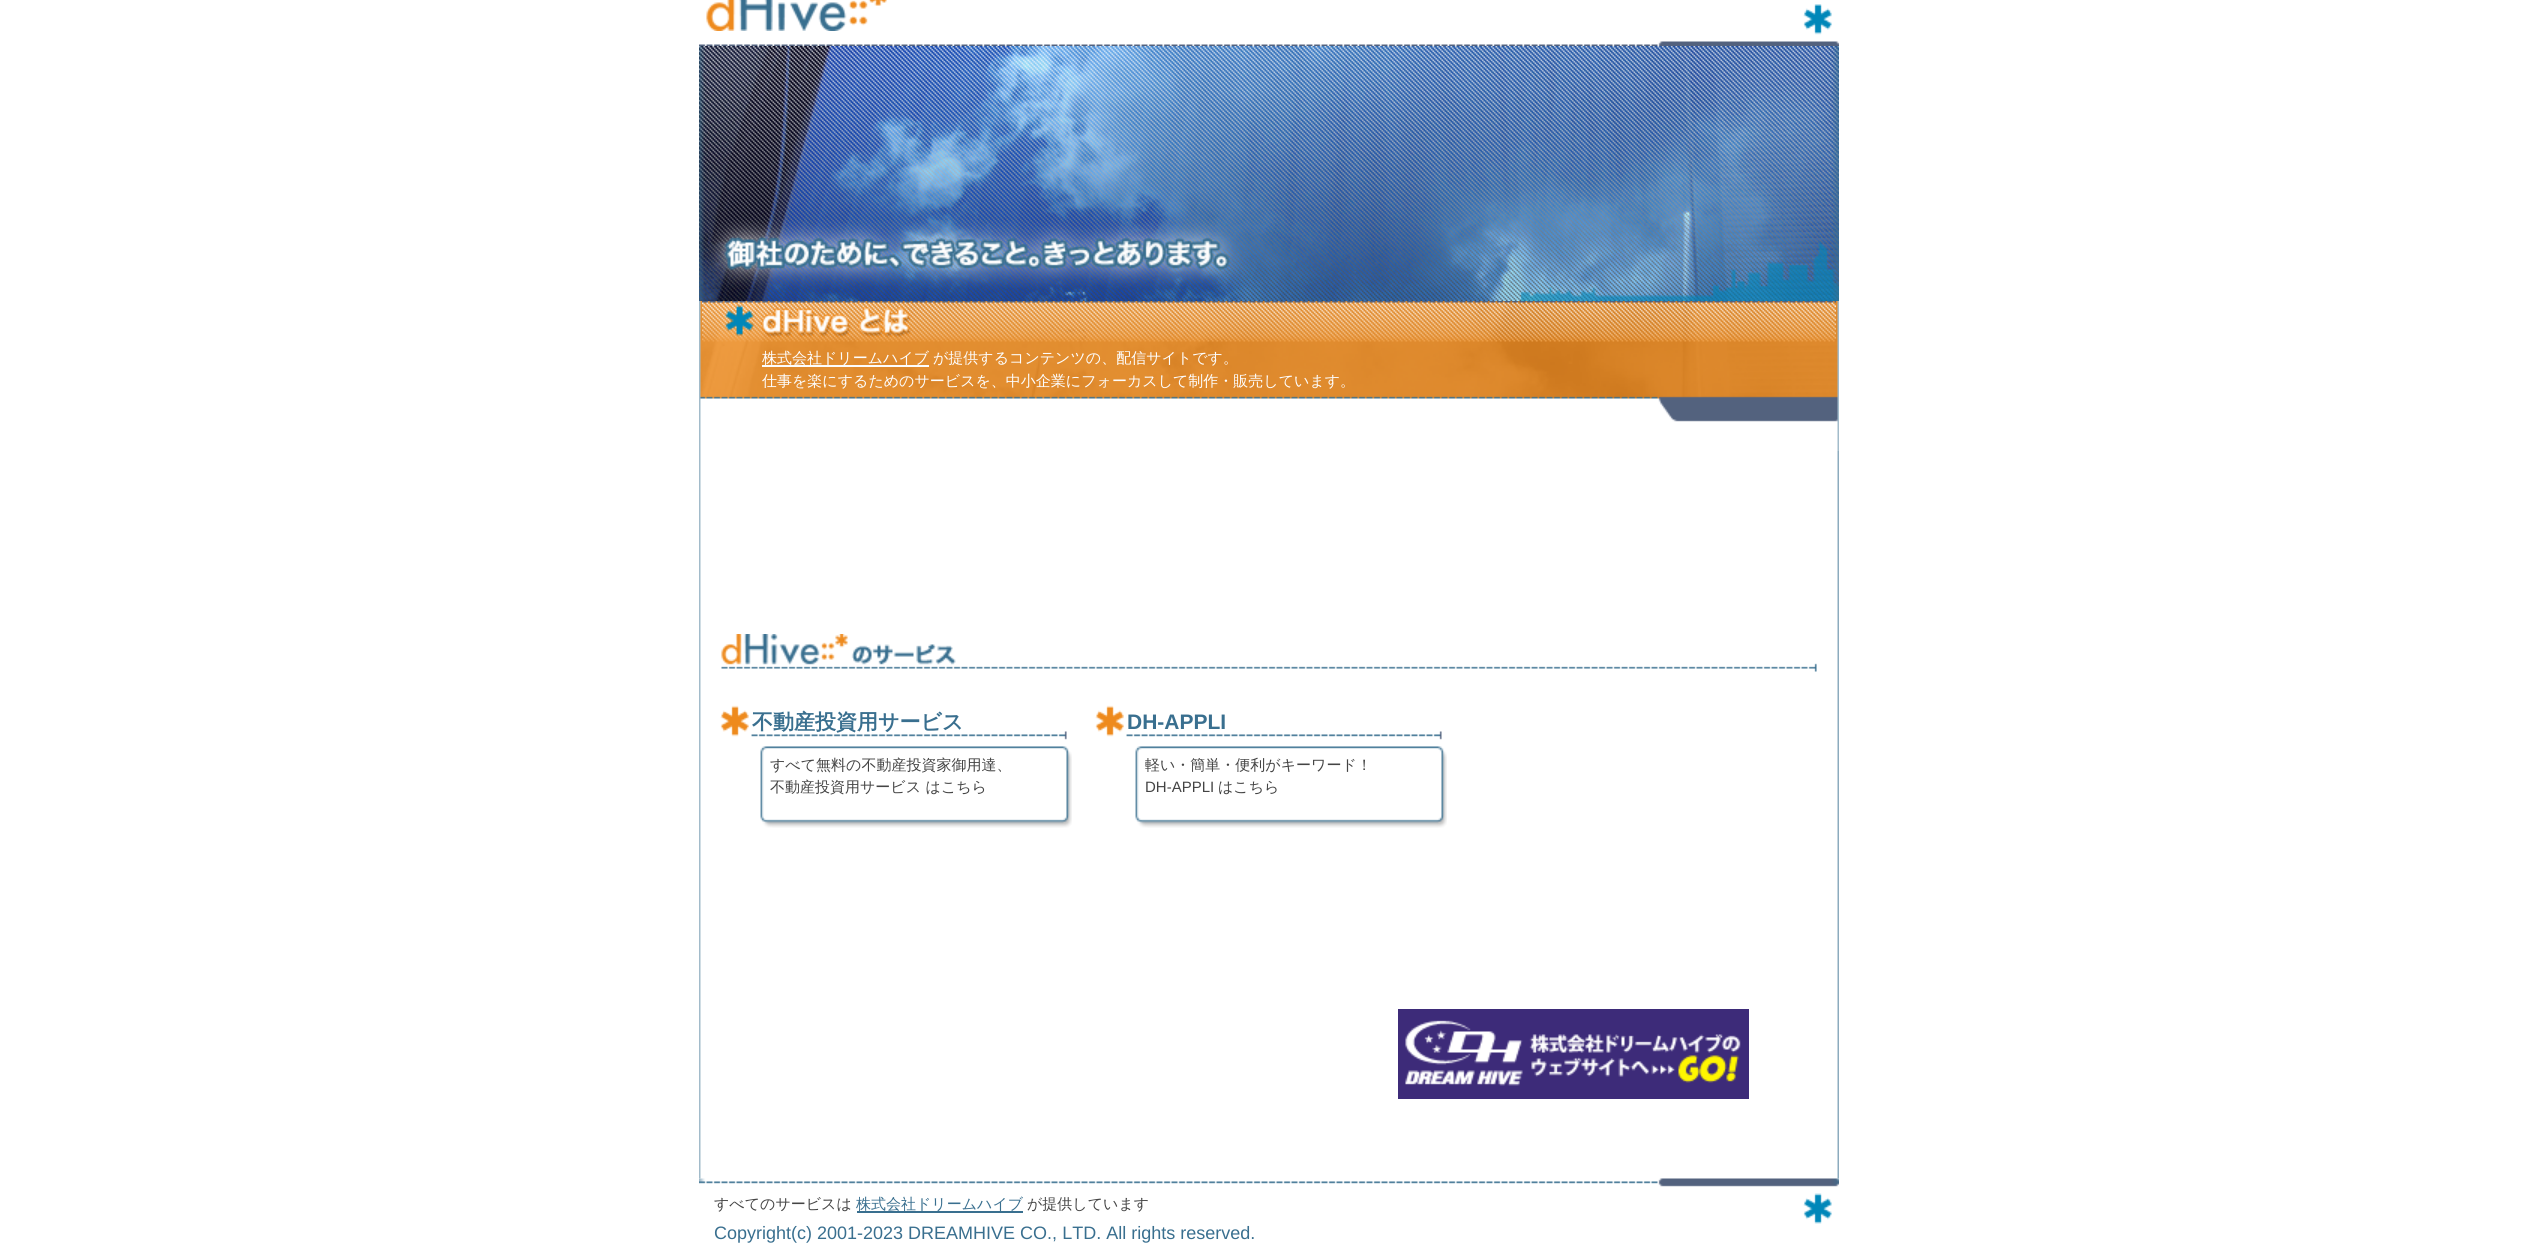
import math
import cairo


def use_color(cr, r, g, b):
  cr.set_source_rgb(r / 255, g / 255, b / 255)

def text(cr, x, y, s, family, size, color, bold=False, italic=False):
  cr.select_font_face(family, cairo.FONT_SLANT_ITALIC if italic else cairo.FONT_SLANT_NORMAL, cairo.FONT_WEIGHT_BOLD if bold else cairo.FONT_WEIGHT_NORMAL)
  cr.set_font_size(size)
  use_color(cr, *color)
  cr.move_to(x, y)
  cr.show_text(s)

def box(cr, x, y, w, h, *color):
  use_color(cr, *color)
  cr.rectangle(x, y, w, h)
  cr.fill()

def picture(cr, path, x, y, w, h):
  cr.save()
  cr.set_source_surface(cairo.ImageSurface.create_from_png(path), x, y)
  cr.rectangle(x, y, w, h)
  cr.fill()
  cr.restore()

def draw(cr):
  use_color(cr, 255, 255, 255)
  cr.paint()
  picture(cr, "img_01.png", 699, 4, 1140, 42)
  picture(cr, "img_02.png", 706, 0, 181, 31)
  picture(cr, "img_03.png", 699, 46, 1140, 255)
  picture(cr, "img_04.png", 699, 301, 1140, 150)
  picture(cr, "img_05.png", 702, 301, 1134, 41)
  box(cr, 762, 365, 167, 2, 253, 253, 253)
  picture(cr, "img_06.png", 699, 451, 1140, 423)
  picture(cr, "img_07.png", 721, 634, 1096, 38)
  picture(cr, "img_08.png", 720, 705, 352, 123)
  picture(cr, "img_09.png", 1095, 705, 352, 123)
  picture(cr, "img_10.png", 699, 874, 1140, 305)
  picture(cr, "img_11.png", 1398, 1009, 351, 90)
  picture(cr, "img_12.png", 699, 1178, 1140, 46)
  box(cr, 857, 1211, 166, 2, 57, 111, 143)
  text(cr, 762, 363, "株式会社ドリームハイブ", "WenQuanYi Zen Hei Medium", 15, (253, 253, 253))
  text(cr, 933, 363, "が提供するコンテンツの、配信サイトです。", "WenQuanYi Zen Hei Medium", 15, (253, 253, 253))
  text(cr, 762, 386, "仕事を楽にするためのサービスを、中小企業にフォーカスして制作・販売しています。", "WenQuanYi Zen Hei Medium", 15, (253, 253, 253))
  text(cr, 752, 729, "不動産投資用サービス", "WenQuanYi Zen Hei", 21, (57, 111, 143), bold=True)
  text(cr, 770, 770, "すべて無料の不動産投資家御用達、", "WenQuanYi Zen Hei Medium", 15, (68, 68, 68))
  text(cr, 770, 792, "不動産投資用サービス はこちら", "WenQuanYi Zen Hei Medium", 15, (68, 68, 68))
  text(cr, 1127, 729, "DH-APPLI", "Liberation Sans", 21, (57, 111, 143), bold=True)
  text(cr, 1145, 770, "軽い・簡単・便利がキーワード！", "WenQuanYi Zen Hei Medium", 15, (68, 68, 68))
  text(cr, 1145, 792, "DH-APPLI", "Liberation Sans", 15, (68, 68, 68))
  text(cr, 1218, 792, "はこちら", "WenQuanYi Zen Hei Medium", 15, (68, 68, 68))
  text(cr, 714, 1209, "すべてのサービスは", "WenQuanYi Zen Hei Medium", 15, (68, 68, 68))
  text(cr, 856, 1209, "株式会社ドリームハイブ", "WenQuanYi Zen Hei Medium", 15, (57, 111, 143))
  text(cr, 1027, 1209, "が提供しています", "WenQuanYi Zen Hei Medium", 15, (68, 68, 68))
  text(cr, 714, 1239, "Copyright(c) 2001-2023 DREAMHIVE CO., LTD. All rights reserved.", "Liberation Sans", 18, (57, 111, 143))


surface = cairo.ImageSurface(cairo.FORMAT_RGB24, 2537, 1253)
cr = cairo.Context(surface)
options = cairo.FontOptions()
options.set_hint_metrics(cairo.HINT_METRICS_OFF)
options.set_hint_style(cairo.HINT_STYLE_NONE)
cr.set_font_options(options)
cr.set_miter_limit(4)
draw(cr)
surface.write_to_png("out.png")
